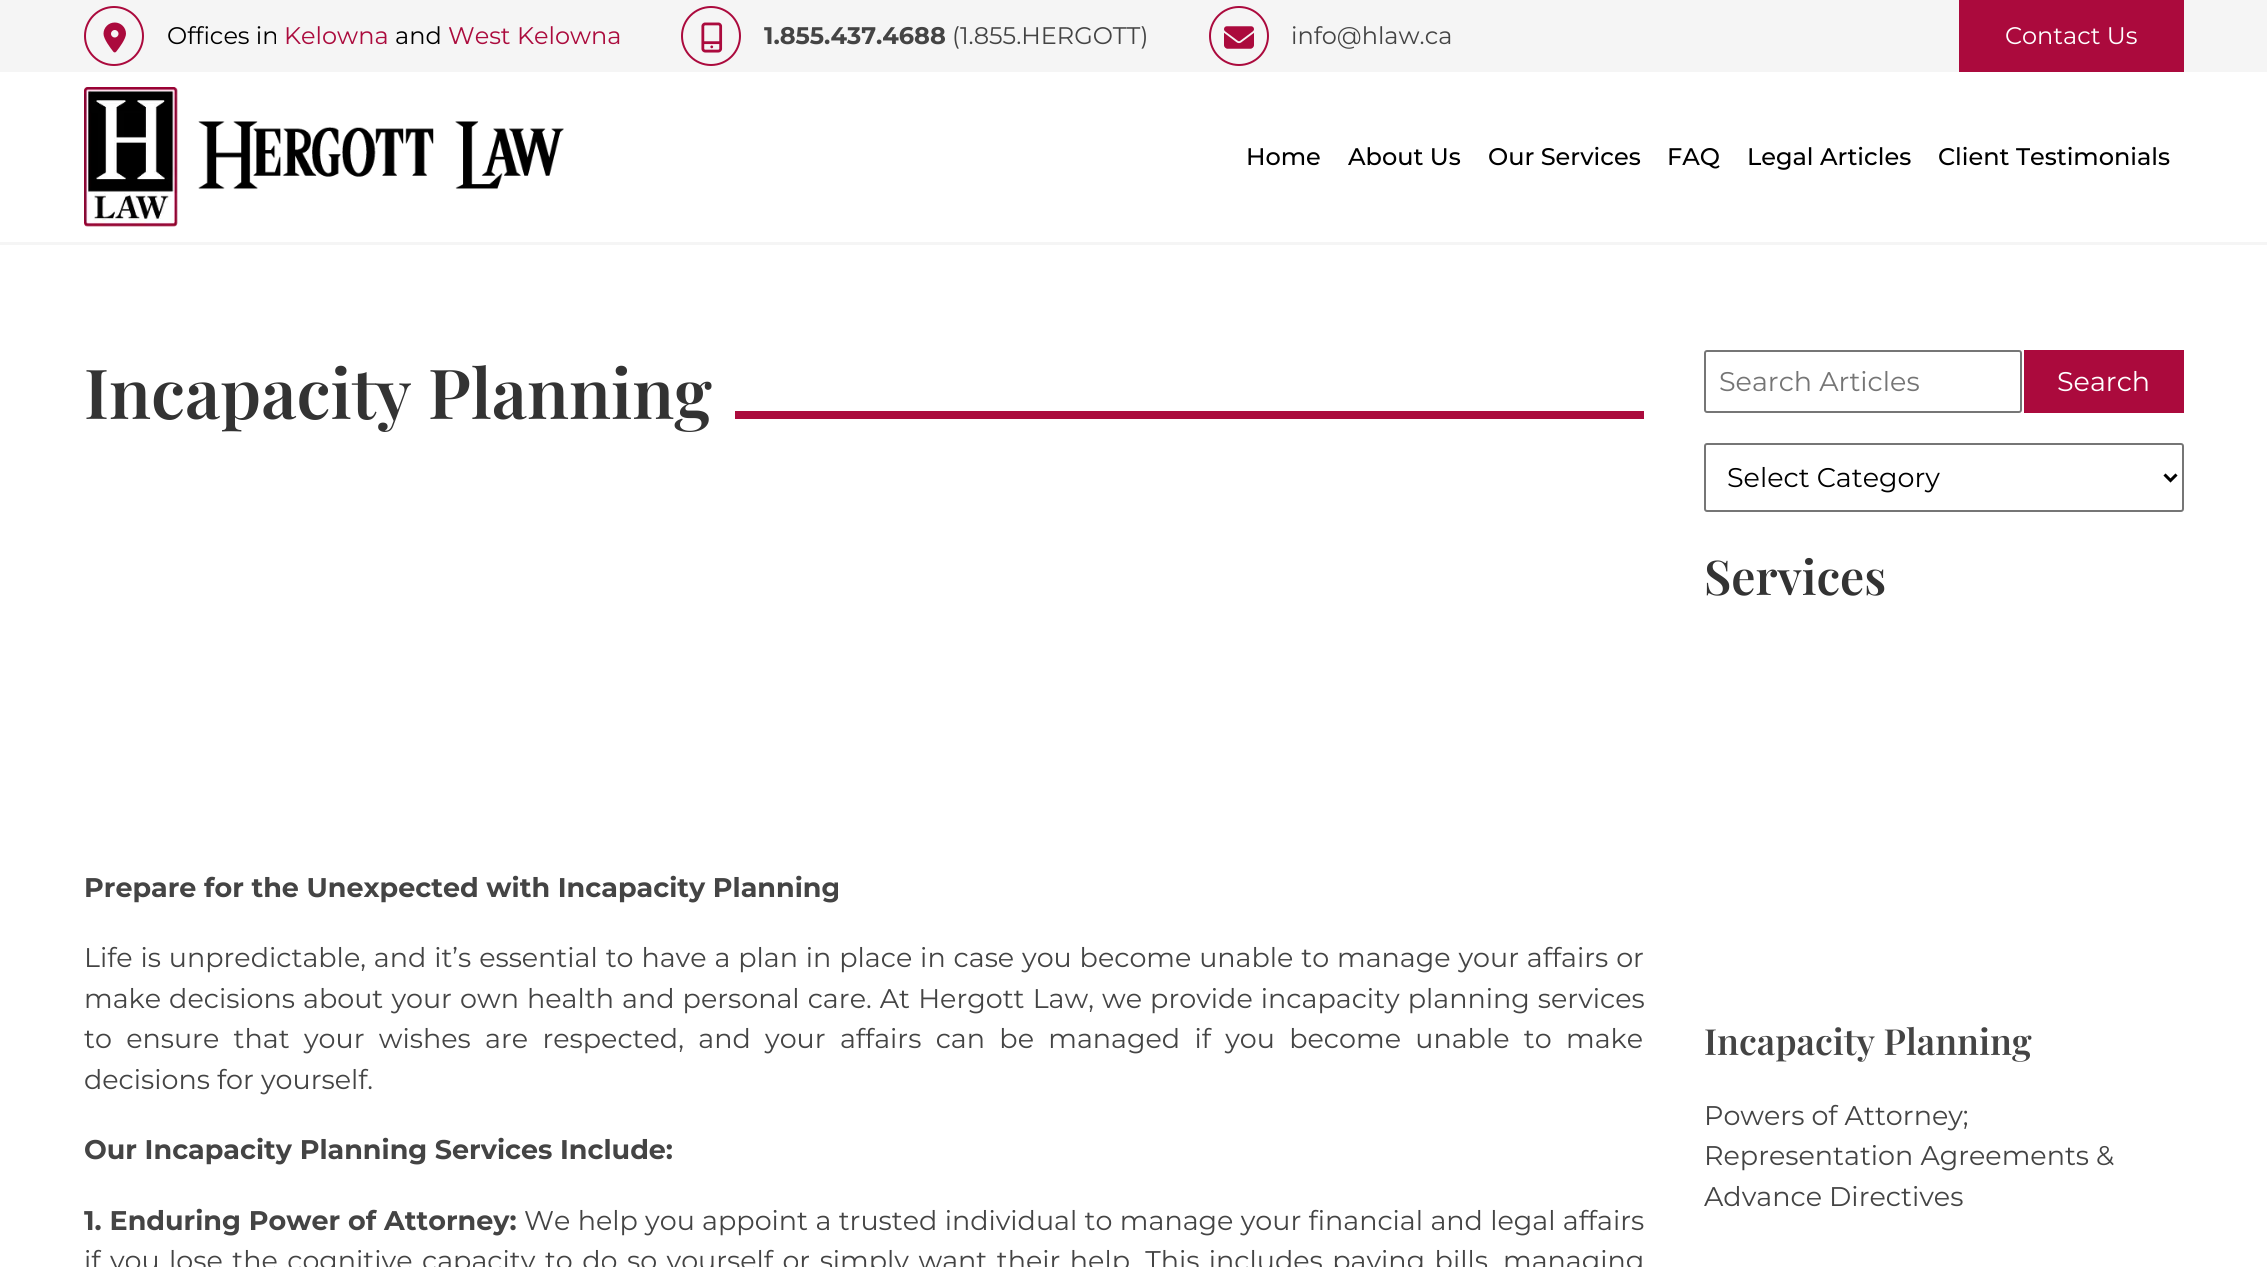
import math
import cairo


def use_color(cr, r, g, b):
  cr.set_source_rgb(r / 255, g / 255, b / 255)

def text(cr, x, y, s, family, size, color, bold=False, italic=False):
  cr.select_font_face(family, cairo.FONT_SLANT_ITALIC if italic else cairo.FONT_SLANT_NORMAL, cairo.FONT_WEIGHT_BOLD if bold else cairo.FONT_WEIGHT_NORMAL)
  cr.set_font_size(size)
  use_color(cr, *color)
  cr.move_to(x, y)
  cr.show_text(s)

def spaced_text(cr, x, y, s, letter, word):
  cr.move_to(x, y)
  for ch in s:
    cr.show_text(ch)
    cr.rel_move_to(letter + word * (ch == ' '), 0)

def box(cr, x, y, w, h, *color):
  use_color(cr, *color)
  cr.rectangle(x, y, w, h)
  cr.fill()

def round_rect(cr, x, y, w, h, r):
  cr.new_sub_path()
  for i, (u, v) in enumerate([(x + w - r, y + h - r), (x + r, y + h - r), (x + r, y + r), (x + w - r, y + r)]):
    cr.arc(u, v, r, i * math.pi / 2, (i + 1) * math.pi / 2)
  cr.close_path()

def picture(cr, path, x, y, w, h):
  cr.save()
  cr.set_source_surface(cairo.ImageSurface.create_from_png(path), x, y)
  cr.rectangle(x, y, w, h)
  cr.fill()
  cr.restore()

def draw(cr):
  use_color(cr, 255, 255, 255)
  cr.paint()
  box(cr, 0, 0, 2267, 72, 245, 245, 245)
  cr.arc(114, 36, 29, 0, 2 * math.pi)
  use_color(cr, 171, 10, 61)
  cr.stroke()
  picture(cr, "img_01.png", 103, 22, 23, 31)
  cr.arc(711, 36, 29, 0, 2 * math.pi)
  cr.stroke()
  picture(cr, "img_02.png", 701, 22, 22, 31)
  cr.arc(1239, 36, 29, 0, 2 * math.pi)
  cr.stroke()
  picture(cr, "img_03.png", 1224, 26, 30, 23)
  box(cr, 1959, 0, 225, 72, 171, 10, 61)
  box(cr, 0, 242, 2267, 3, 245, 245, 245)
  picture(cr, "img_04.png", 84, 87, 480, 140)
  box(cr, 735, 411, 909, 8, 171, 11, 61)
  round_rect(cr, 1705, 351, 316, 61, 2)
  use_color(cr, 118, 118, 118)
  cr.stroke()
  box(cr, 2024, 350, 160, 63, 171, 10, 61)
  round_rect(cr, 1705, 444, 478, 67, 2)
  use_color(cr, 118, 118, 118)
  cr.stroke()
  cr.new_path()
  cr.move_to(2164.5, 474.5)
  cr.line_to(2170.5, 480.5)
  cr.line_to(2176.5, 474.5)
  use_color(cr, 0, 0, 0)
  cr.set_line_width(3)
  cr.stroke()
  text(cr, 167, 44, "Offices in", "Montserrat", 24, (0, 0, 0))
  text(cr, 284, 44, "Kelowna", "Montserrat", 24, (171, 11, 61))
  text(cr, 395, 44, "and", "Montserrat", 24, (0, 0, 0))
  text(cr, 448, 44, "West Kelowna", "Montserrat", 24, (171, 11, 61))
  text(cr, 764, 44, "1.855.437.4688", "Montserrat", 24, (68, 68, 68), bold=True)
  text(cr, 952, 44, "(1.855.HERGOTT)", "Montserrat", 24, (68, 68, 68))
  text(cr, 1291, 44, "info@hlaw.ca", "Montserrat", 24, (68, 68, 68))
  text(cr, 2005, 44, "Contact Us", "Montserrat", 24, (255, 255, 255))
  text(cr, 1246, 165, "Home", "Montserrat Medium", 24, (0, 0, 0))
  text(cr, 1348, 165, "About Us", "Montserrat Medium", 24, (0, 0, 0))
  text(cr, 1488, 165, "Our Services", "Montserrat Medium", 24, (0, 0, 0))
  text(cr, 1667, 165, "FAQ", "Montserrat Medium", 24, (0, 0, 0))
  text(cr, 1747, 165, "Legal Articles", "Montserrat Medium", 24, (0, 0, 0))
  text(cr, 1938, 165, "Client Testimonials", "Montserrat Medium", 24, (0, 0, 0))
  text(cr, 84, 419, "Incapacity Planning", "Playfair Display SemiBold", 69, (51, 51, 51))
  text(cr, 84, 897, "Prepare for the Unexpected with Incapacity Planning", "Montserrat", 27, (68, 68, 68), bold=True)
  cr.select_font_face("Montserrat")
  spaced_text(cr, 84, 967, "Life is unpredictable, and it’s essential to have a plan in place in case you become unable to manage your affairs or", 0, 0.8)
  spaced_text(cr, 84, 1008, "make decisions about your own health and personal care. At Hergott Law, we provide incapacity planning services", 0, 1)
  spaced_text(cr, 84, 1048, "to ensure that your wishes are respected, and your affairs can be managed if you become unable to make", 0, 7.25)
  text(cr, 84, 1089, "decisions for yourself.", "Montserrat", 27, (68, 68, 68))
  text(cr, 84, 1159, "Our Incapacity Planning Services Include:", "Montserrat", 27, (68, 68, 68), bold=True)
  spaced_text(cr, 84, 1230, "1. Enduring Power of Attorney:", 0, 0.25)
  cr.select_font_face("Montserrat")
  spaced_text(cr, 524, 1230, "We help you appoint a trusted individual to manage your financial and legal affairs", 0, 0.25)
  spaced_text(cr, 84, 1270, "if you lose the cognitive capacity to do so yourself or simply want their help. This includes paying bills, managing", 0, 2.4)
  text(cr, 1719, 391, "Search Articles", "Montserrat", 27, (117, 117, 117))
  text(cr, 2057, 391, "Search", "Montserrat", 27, (255, 255, 255))
  text(cr, 1727, 487, "Select Category", "Montserrat", 27, (0, 0, 0))
  text(cr, 1704, 595, "Services", "Playfair Display SemiBold", 48, (51, 51, 51))
  text(cr, 1704, 1055, "Incapacity Planning", "Playfair Display SemiBold", 36, (68, 68, 68))
  text(cr, 1704, 1125, "Powers of Attorney;", "Montserrat", 27, (68, 68, 68))
  text(cr, 1704, 1165, "Representation Agreements &", "Montserrat", 27, (68, 68, 68))
  text(cr, 1704, 1206, "Advance Directives", "Montserrat", 27, (68, 68, 68))


surface = cairo.ImageSurface(cairo.FORMAT_RGB24, 2267, 1267)
cr = cairo.Context(surface)
options = cairo.FontOptions()
options.set_hint_metrics(cairo.HINT_METRICS_OFF)
options.set_hint_style(cairo.HINT_STYLE_NONE)
cr.set_font_options(options)
cr.set_miter_limit(4)
draw(cr)
surface.write_to_png("out.png")
